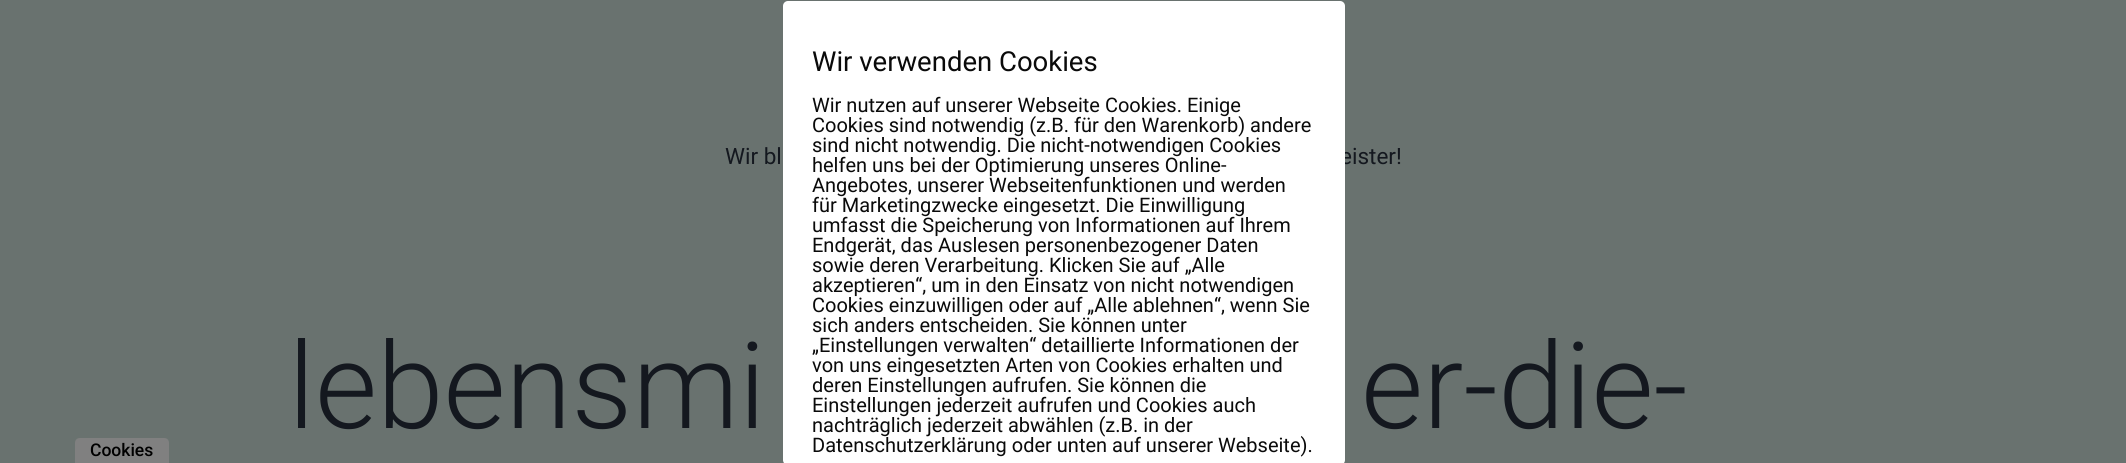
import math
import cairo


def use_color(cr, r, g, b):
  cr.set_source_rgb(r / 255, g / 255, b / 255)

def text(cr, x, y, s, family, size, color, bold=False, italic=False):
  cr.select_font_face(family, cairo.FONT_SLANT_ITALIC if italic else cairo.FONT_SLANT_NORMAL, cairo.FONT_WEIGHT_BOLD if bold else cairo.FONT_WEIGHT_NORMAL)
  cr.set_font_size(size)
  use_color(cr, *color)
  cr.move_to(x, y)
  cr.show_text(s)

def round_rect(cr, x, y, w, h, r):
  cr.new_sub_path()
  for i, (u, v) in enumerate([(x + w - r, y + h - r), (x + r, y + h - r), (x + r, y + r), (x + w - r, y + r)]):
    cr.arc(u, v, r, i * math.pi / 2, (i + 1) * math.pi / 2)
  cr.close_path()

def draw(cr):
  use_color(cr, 105, 114, 111)
  cr.paint()
  use_color(cr, 128, 128, 128)
  cr.new_path()
  cr.move_to(80, 438)
  cr.line_to(164, 438)
  cr.curve_to(167, 438, 169, 440, 169, 443)
  cr.line_to(169, 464)
  cr.line_to(75, 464)
  cr.line_to(75, 443)
  cr.curve_to(75, 440, 77, 438, 80, 438)
  cr.close_path()
  cr.fill()
  text(cr, 725, 164, "Wir bl", "Roboto", 22.5, (20, 24, 31))
  text(cr, 1340, 164, "eister!", "Roboto", 22.5, (20, 24, 31))
  use_color(cr, 255, 255, 255)
  round_rect(cr, 783, 1, 562, 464, 5)
  cr.fill()
  text(cr, 812, 452, "Datenschutzerklärung oder unten auf unserer Webseite).", "Roboto", 20, (10, 10, 10))
  text(cr, 812, 432, "nachträglich jederzeit abwählen (z.B. in der", "Roboto", 20, (10, 10, 10))
  text(cr, 812, 412, "Einstellungen jederzeit aufrufen und Cookies auch", "Roboto", 20, (10, 10, 10))
  text(cr, 812, 392, "deren Einstellungen aufrufen. Sie können die", "Roboto", 20, (10, 10, 10))
  text(cr, 812, 372, "von uns eingesetzten Arten von Cookies erhalten und", "Roboto", 20, (10, 10, 10))
  text(cr, 812, 352, "„Einstellungen verwalten“ detaillierte Informationen der", "Roboto", 20, (10, 10, 10))
  text(cr, 812, 332, "sich anders entscheiden. Sie können unter", "Roboto", 20, (10, 10, 10))
  text(cr, 812, 312, "Cookies einzuwilligen oder auf „Alle ablehnen“, wenn Sie", "Roboto", 20, (10, 10, 10))
  text(cr, 812, 292, "akzeptieren“, um in den Einsatz von nicht notwendigen", "Roboto", 20, (10, 10, 10))
  text(cr, 812, 272, "sowie deren Verarbeitung. Klicken Sie auf „Alle", "Roboto", 20, (10, 10, 10))
  text(cr, 812, 252, "Endgerät, das Auslesen personenbezogener Daten", "Roboto", 20, (10, 10, 10))
  text(cr, 812, 232, "umfasst die Speicherung von Informationen auf Ihrem", "Roboto", 20, (10, 10, 10))
  text(cr, 812, 212, "für Marketingzwecke eingesetzt. Die Einwilligung", "Roboto", 20, (10, 10, 10))
  text(cr, 812, 192, "Angebotes, unserer Webseitenfunktionen und werden", "Roboto", 20, (10, 10, 10))
  text(cr, 812, 172, "helfen uns bei der Optimierung unseres Online-", "Roboto", 20, (10, 10, 10))
  text(cr, 812, 152, "sind nicht notwendig. Die nicht-notwendigen Cookies", "Roboto", 20, (10, 10, 10))
  text(cr, 812, 132, "Cookies sind notwendig (z.B. für den Warenkorb) andere", "Roboto", 20, (10, 10, 10))
  text(cr, 812, 112, "Wir nutzen auf unserer Webseite Cookies. Einige", "Roboto", 20, (10, 10, 10))
  text(cr, 812, 71, "Wir verwenden Cookies", "Roboto", 27.5, (10, 10, 10))
  text(cr, 288, 428, "lebensmi", "Roboto Light", 120, (20, 24, 31))
  text(cr, 1361, 428, "er-die-", "Roboto Light", 120, (20, 24, 31))
  text(cr, 90, 456, "Cookies", "Roboto Medium", 17.5, (0, 0, 0))


surface = cairo.ImageSurface(cairo.FORMAT_RGB24, 2126, 463)
cr = cairo.Context(surface)
options = cairo.FontOptions()
options.set_hint_metrics(cairo.HINT_METRICS_OFF)
options.set_hint_style(cairo.HINT_STYLE_NONE)
cr.set_font_options(options)
cr.set_miter_limit(4)
draw(cr)
surface.write_to_png("out.png")
